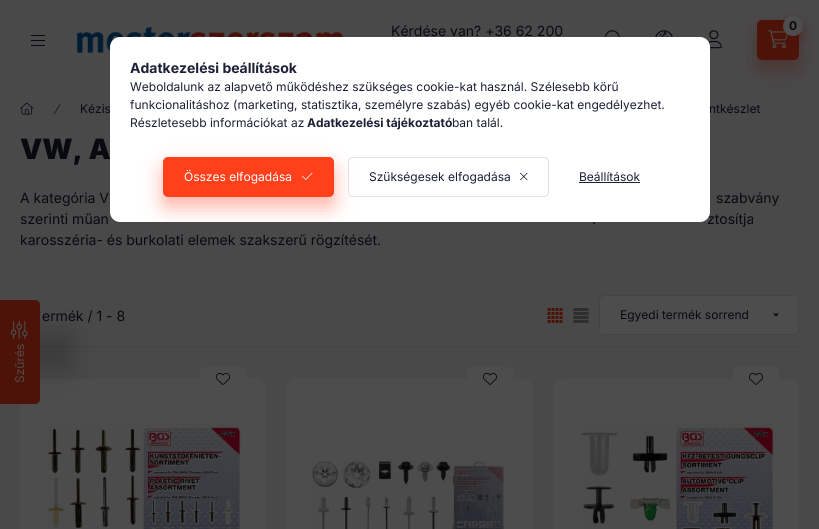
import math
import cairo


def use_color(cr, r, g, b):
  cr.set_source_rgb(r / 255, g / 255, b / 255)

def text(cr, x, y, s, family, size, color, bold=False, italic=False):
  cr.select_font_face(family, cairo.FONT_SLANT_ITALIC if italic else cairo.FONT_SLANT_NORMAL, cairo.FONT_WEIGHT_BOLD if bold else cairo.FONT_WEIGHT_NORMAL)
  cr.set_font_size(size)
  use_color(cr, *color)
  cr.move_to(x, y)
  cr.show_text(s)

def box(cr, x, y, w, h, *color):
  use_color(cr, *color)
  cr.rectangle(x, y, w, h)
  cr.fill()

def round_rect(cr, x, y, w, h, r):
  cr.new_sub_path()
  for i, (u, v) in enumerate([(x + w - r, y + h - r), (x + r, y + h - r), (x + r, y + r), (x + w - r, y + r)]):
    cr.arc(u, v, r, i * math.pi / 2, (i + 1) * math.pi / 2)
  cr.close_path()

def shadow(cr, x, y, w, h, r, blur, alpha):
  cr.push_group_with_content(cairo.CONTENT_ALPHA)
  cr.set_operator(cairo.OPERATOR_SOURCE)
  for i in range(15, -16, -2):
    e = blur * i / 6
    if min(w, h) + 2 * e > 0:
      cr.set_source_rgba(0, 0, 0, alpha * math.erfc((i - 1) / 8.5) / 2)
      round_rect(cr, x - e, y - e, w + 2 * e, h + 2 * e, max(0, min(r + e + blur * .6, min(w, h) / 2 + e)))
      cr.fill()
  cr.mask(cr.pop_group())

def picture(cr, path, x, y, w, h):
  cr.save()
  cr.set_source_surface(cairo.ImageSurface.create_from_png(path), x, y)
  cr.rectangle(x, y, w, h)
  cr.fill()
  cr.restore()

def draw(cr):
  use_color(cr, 73, 73, 74)
  cr.paint()
  box(cr, 31, 35, 14, 1, 8, 10, 16)
  box(cr, 31, 40, 14, 1, 8, 10, 16)
  box(cr, 31, 45, 14, 1, 8, 10, 16)
  picture(cr, "img_01.png", 76, 26, 267, 28)
  use_color(cr, 77, 19, 8)
  shadow(cr, 757, 30, 42, 40, 5, 10, 0.4)
  use_color(cr, 77, 19, 8)
  round_rect(cr, 757, 20, 42, 40, 5)
  cr.fill()
  picture(cr, "img_02.png", 768, 30, 20, 19)
  use_color(cr, 77, 19, 8)
  shadow(cr, 783, 21, 20, 20, 10, 5, 0.4)
  use_color(cr, 77, 77, 77)
  cr.arc(793, 26, 10, 0, 2 * math.pi)
  cr.fill()
  picture(cr, "img_03.png", 605, 30, 15, 7)
  picture(cr, "img_04.png", 655, 30, 18, 7)
  picture(cr, "img_05.png", 708, 30, 14, 19)
  picture(cr, "img_06.png", 20, 102, 14, 13)
  picture(cr, "img_07.png", 54, 104, 7, 11)
  box(cr, 40, 346, 759, 1, 68, 68, 68)
  picture(cr, "img_08.png", 547, 308, 16, 15)
  picture(cr, "img_09.png", 573, 308, 16, 15)
  use_color(cr, 77, 77, 77)
  round_rect(cr, 599.5, 295.5, 199, 39, 4.5)
  cr.fill_preserve()
  use_color(cr, 68, 68, 68)
  cr.set_line_width(1)
  cr.stroke()
  use_color(cr, 8, 10, 16)
  cr.new_path()
  cr.move_to(773, 313.5)
  cr.line_to(779, 313.5)
  cr.line_to(776, 316.5)
  cr.close_path()
  cr.fill()
  use_color(cr, 77, 77, 77)
  round_rect(cr, 20, 379, 246, 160, 10)
  cr.fill()
  round_rect(cr, 200, 367, 46, 24, 5)
  cr.fill()
  picture(cr, "img_10.png", 216, 372, 14, 13)
  picture(cr, "img_11.png", 46, 423, 195, 106)
  round_rect(cr, 286, 379, 247, 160, 10)
  cr.fill()
  round_rect(cr, 467, 367, 46, 24, 5)
  cr.fill()
  picture(cr, "img_10.png", 483, 372, 14, 13)
  picture(cr, "img_12.png", 312, 461, 193, 68)
  round_rect(cr, 553, 379, 246, 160, 10)
  cr.fill()
  round_rect(cr, 733, 367, 46, 24, 5)
  cr.fill()
  picture(cr, "img_10.png", 749, 372, 14, 13)
  picture(cr, "img_13.png", 582, 422, 192, 107)
  use_color(cr, 0, 0, 0)
  shadow(cr, -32, 332, 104, 40, 5, 15, 0.2)
  use_color(cr, 77, 19, 8)
  cr.new_path()
  cr.move_to(0, 404)
  cr.line_to(0, 300)
  cr.line_to(35, 300)
  cr.curve_to(38, 300, 40, 302, 40, 305)
  cr.line_to(40, 399)
  cr.curve_to(40, 402, 38, 404, 35, 404)
  cr.close_path()
  cr.fill()
  picture(cr, "img_14.png", 10, 321, 18, 18)
  text(cr, 391, 36, "Kérdése van? +36 62 200", "Inter", 14, (8, 10, 16))
  text(cr, 789, 30, "0", "Inter", 12, (8, 10, 16), bold=True)
  text(cr, 80, 113, "Kézis", "Inter", 12, (8, 10, 16))
  text(cr, 709, 113, "ntkészlet", "Inter", 12, (8, 10, 16))
  text(cr, 20, 159, "VW, A", "Inter Black", 28, (8, 10, 16))
  text(cr, 20, 203, "A kategória V", "Inter", 14, (8, 10, 16))
  text(cr, 716, 203, "szabvány", "Inter", 14, (8, 10, 16))
  text(cr, 20, 224, "szerinti műan", "Inter", 14, (8, 10, 16))
  text(cr, 592, 224, ".", "Inter", 14, (8, 10, 16))
  text(cr, 707, 224, "ztosítja", "Inter", 14, (8, 10, 16))
  text(cr, 20, 245, "karosszéria- és burkolati elemek szakszerű rögzítését.", "Inter", 14, (8, 10, 16))
  text(cr, 42, 321, "ermék / 1 - 8", "Inter", 14, (8, 10, 16))
  text(cr, 620, 319, "Egyedi termék sorrend", "Inter", 12, (8, 10, 16))
  cr.save()
  cr.translate(24, 383)
  cr.rotate(-90 * math.pi / 180)
  text(cr, 0, 0, "Szűrés", "Inter", 12, (77, 77, 77))
  cr.restore()
  use_color(cr, 255, 255, 255)
  round_rect(cr, 110, 37, 600, 185, 10)
  cr.fill()
  text(cr, 130, 73, "Adatkezelési beállítások", "Inter", 14, (27, 32, 54), bold=True)
  text(cr, 130, 91, "Weboldalunk az alapvető működéshez szükséges cookie-kat használ. Szélesebb körű", "Inter", 12, (27, 32, 54))
  text(cr, 130, 109, "funkcionalitáshoz (marketing, statisztika, személyre szabás) egyéb cookie-kat engedélyezhet.", "Inter", 12, (27, 32, 54))
  text(cr, 130, 127, "Részletesebb információkat az", "Inter", 12, (27, 32, 54))
  text(cr, 307, 127, "Adatkezelési tájékoztató", "Inter", 12, (27, 32, 54), bold=True)
  text(cr, 452, 127, "ban talál.", "Inter", 12, (27, 32, 54))
  cr.save()
  round_rect(cr, 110, 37, 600, 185, 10)
  cr.clip()
  use_color(cr, 255, 64, 27)
  shadow(cr, 163, 167, 171, 40, 5, 10, 0.4)
  cr.restore()
  use_color(cr, 255, 64, 27)
  round_rect(cr, 163.5, 157.5, 170, 39, 4.5)
  cr.fill_preserve()
  cr.stroke()
  text(cr, 184, 181, "Összes elfogadása", "Inter", 12, (255, 255, 255))
  picture(cr, "img_15.png", 302, 172, 11, 8)
  round_rect(cr, 348.5, 157.5, 200, 39, 4.5)
  use_color(cr, 225, 225, 225)
  cr.stroke()
  text(cr, 369, 181, "Szükségesek elfogadása", "Inter", 12, (27, 32, 54))
  picture(cr, "img_16.png", 520, 172, 8, 9)
  text(cr, 579, 181, "Beállítások", "Inter", 12, (27, 32, 54))
  box(cr, 579, 182, 61, 1, 27, 32, 54)


surface = cairo.ImageSurface(cairo.FORMAT_RGB24, 819, 529)
cr = cairo.Context(surface)
options = cairo.FontOptions()
options.set_hint_metrics(cairo.HINT_METRICS_OFF)
options.set_hint_style(cairo.HINT_STYLE_NONE)
cr.set_font_options(options)
cr.set_miter_limit(4)
draw(cr)
surface.write_to_png("out.png")
